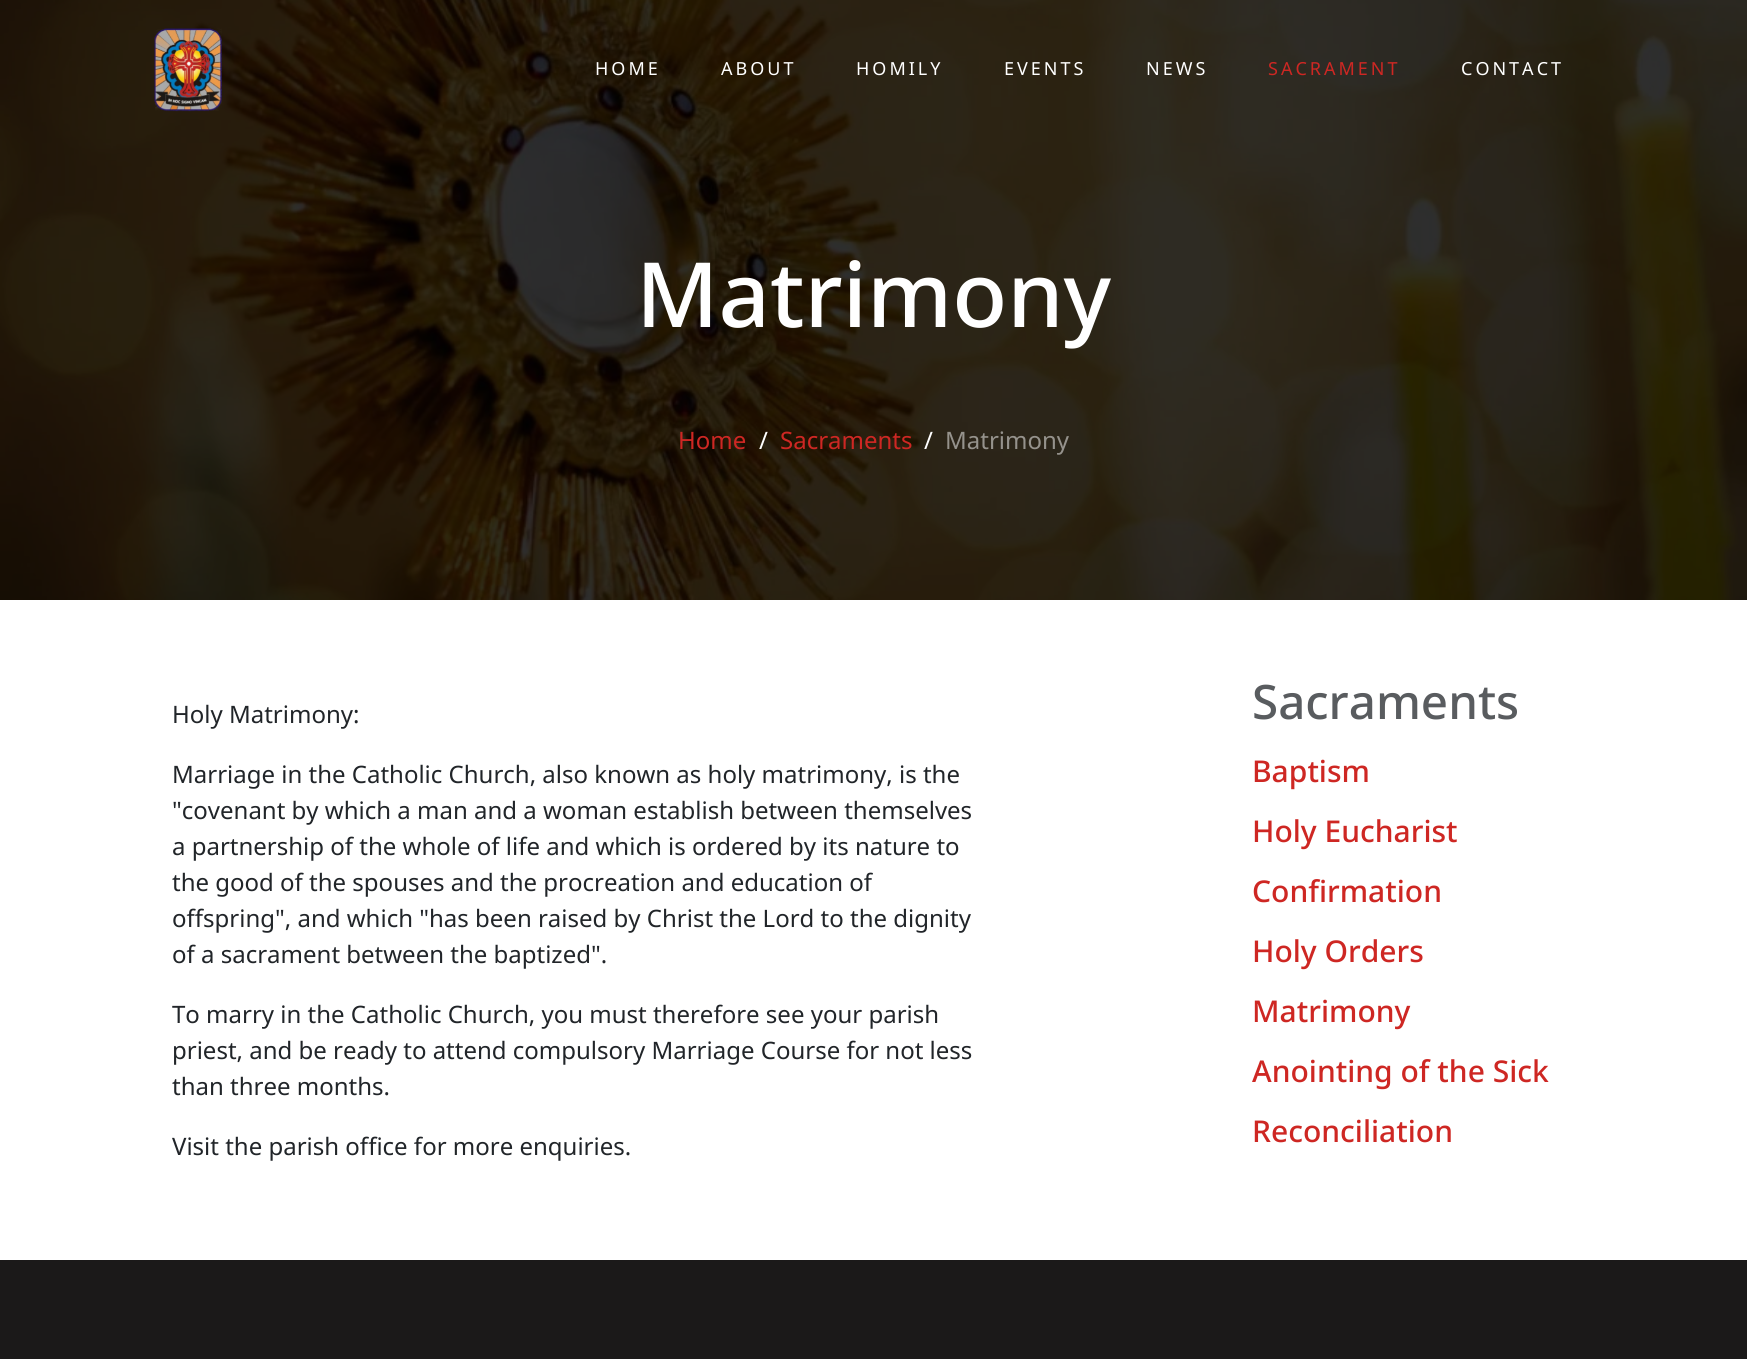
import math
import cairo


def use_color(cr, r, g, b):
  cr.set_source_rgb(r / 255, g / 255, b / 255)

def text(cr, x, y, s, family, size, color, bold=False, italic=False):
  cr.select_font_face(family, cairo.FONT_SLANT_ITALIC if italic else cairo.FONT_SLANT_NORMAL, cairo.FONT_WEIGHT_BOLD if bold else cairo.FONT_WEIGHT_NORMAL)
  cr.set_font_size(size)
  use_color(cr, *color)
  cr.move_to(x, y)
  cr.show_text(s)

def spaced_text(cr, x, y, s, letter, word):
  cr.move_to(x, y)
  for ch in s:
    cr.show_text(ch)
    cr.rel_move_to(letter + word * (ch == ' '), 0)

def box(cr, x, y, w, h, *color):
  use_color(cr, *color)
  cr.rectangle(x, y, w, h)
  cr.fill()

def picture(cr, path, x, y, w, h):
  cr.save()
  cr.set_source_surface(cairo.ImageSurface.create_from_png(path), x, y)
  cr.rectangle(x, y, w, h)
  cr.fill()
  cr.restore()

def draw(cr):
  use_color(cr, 255, 255, 255)
  cr.paint()
  picture(cr, "img_02.png", 0, 0, 1747, 600)
  picture(cr, "img_01.png", 154, 28, 68, 84)
  box(cr, 0, 1260, 1747, 99, 27, 25, 25)
  cr.select_font_face("Noto Sans")
  cr.set_font_size(18)
  use_color(cr, 255, 255, 255)
  spaced_text(cr, 595, 75, "HOME", 3, 0)
  spaced_text(cr, 721, 75, "ABOUT", 3, 0)
  spaced_text(cr, 856, 75, "HOMILY", 3, 0)
  spaced_text(cr, 1004, 75, "EVENTS", 3, 0)
  spaced_text(cr, 1146, 75, "NEWS", 3, 0)
  use_color(cr, 206, 39, 35)
  spaced_text(cr, 1268, 75, "SACRAMENT", 3, 0)
  use_color(cr, 255, 255, 255)
  spaced_text(cr, 1461, 75, "CONTACT", 3, 0)
  text(cr, 636, 327, "Matrimony", "Noto Sans Medium", 90, (255, 255, 255))
  text(cr, 678, 449, "Home", "Noto Sans", 24, (206, 39, 35))
  text(cr, 759, 449, "/", "Noto Sans", 24, (255, 255, 255))
  text(cr, 780, 449, "Sacraments", "Noto Sans", 24, (206, 39, 35))
  text(cr, 924, 449, "/", "Noto Sans", 24, (255, 255, 255))
  text(cr, 945, 449, "Matrimony", "Noto Sans", 24, (149, 146, 140))
  text(cr, 172, 723, "Holy Matrimony:", "Noto Sans", 24, (33, 37, 41))
  text(cr, 172, 783, "Marriage in the Catholic Church, also known as holy matrimony, is the", "Noto Sans", 24, (33, 37, 41))
  text(cr, 172, 819, "\"covenant by which a man and a woman establish between themselves", "Noto Sans", 24, (33, 37, 41))
  text(cr, 172, 855, "a partnership of the whole of life and which is ordered by its nature to", "Noto Sans", 24, (33, 37, 41))
  text(cr, 172, 891, "the good of the spouses and the procreation and education of", "Noto Sans", 24, (33, 37, 41))
  text(cr, 172, 927, "offspring\", and which \"has been raised by Christ the Lord to the dignity", "Noto Sans", 24, (33, 37, 41))
  text(cr, 172, 963, "of a sacrament between the baptized\".", "Noto Sans", 24, (33, 37, 41))
  text(cr, 172, 1023, "To marry in the Catholic Church, you must therefore see your parish", "Noto Sans", 24, (33, 37, 41))
  text(cr, 172, 1059, "priest, and be ready to attend compulsory Marriage Course for not less", "Noto Sans", 24, (33, 37, 41))
  text(cr, 172, 1095, "than three months.", "Noto Sans", 24, (33, 37, 41))
  text(cr, 172, 1155, "Visit the parish office for more enquiries.", "Noto Sans", 24, (33, 37, 41))
  text(cr, 1252, 719, "Sacraments", "Noto Sans Medium", 47.5, (89, 92, 95))
  text(cr, 1252, 782, "Baptism", "Noto Sans Medium", 30, (206, 39, 35))
  text(cr, 1252, 842, "Holy Eucharist", "Noto Sans Medium", 30, (206, 39, 35))
  text(cr, 1252, 902, "Confirmation", "Noto Sans Medium", 30, (206, 39, 35))
  text(cr, 1252, 962, "Holy Orders", "Noto Sans Medium", 30, (206, 39, 35))
  text(cr, 1252, 1022, "Matrimony", "Noto Sans Medium", 30, (206, 39, 35))
  text(cr, 1252, 1082, "Anointing of the Sick", "Noto Sans Medium", 30, (206, 39, 35))
  text(cr, 1252, 1142, "Reconciliation", "Noto Sans Medium", 30, (206, 39, 35))


surface = cairo.ImageSurface(cairo.FORMAT_RGB24, 1747, 1359)
cr = cairo.Context(surface)
options = cairo.FontOptions()
options.set_hint_metrics(cairo.HINT_METRICS_OFF)
options.set_hint_style(cairo.HINT_STYLE_NONE)
cr.set_font_options(options)
cr.set_miter_limit(4)
draw(cr)
surface.write_to_png("out.png")
